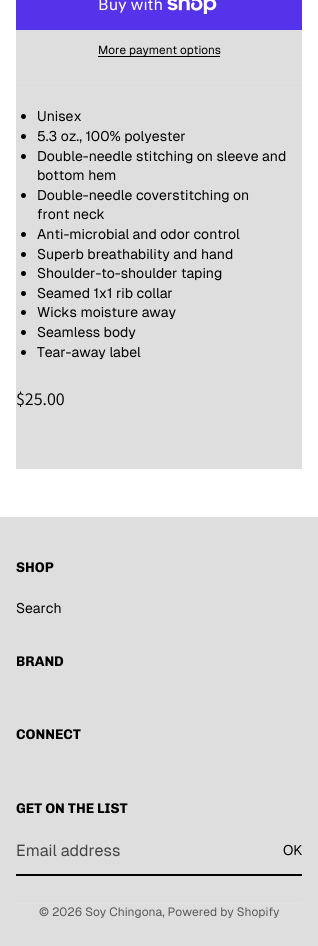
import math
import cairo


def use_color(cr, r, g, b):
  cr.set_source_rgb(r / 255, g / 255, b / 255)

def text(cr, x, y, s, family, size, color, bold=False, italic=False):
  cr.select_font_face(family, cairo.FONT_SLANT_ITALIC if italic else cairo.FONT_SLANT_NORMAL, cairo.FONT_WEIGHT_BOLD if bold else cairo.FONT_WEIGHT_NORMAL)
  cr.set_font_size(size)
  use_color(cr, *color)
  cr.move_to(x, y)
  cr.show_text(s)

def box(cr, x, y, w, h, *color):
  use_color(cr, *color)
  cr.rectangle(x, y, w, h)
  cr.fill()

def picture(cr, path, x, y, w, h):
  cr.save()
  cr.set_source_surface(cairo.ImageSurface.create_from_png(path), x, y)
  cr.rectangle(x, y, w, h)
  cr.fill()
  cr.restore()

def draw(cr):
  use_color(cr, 255, 255, 255)
  cr.paint()
  box(cr, 16, 30, 286, 439, 222, 222, 222)
  box(cr, 16, 0, 286, 30, 84, 51, 235)
  picture(cr, "img_01.png", 167, 0, 50, 14)
  box(cr, 98, 56, 122, 1, 0, 0, 0)
  box(cr, 16, 82, 286, 1, 225, 225, 225)
  use_color(cr, 0, 0, 0)
  cr.arc(23.5, 116.5, 2.5, 0, 2 * math.pi)
  cr.fill()
  cr.arc(23.5, 136.5, 2.5, 0, 2 * math.pi)
  cr.fill()
  cr.arc(23.5, 156.5, 2.5, 0, 2 * math.pi)
  cr.fill()
  cr.arc(23.5, 195.5, 2.5, 0, 2 * math.pi)
  cr.fill()
  cr.arc(23.5, 234.5, 2.5, 0, 2 * math.pi)
  cr.fill()
  cr.arc(23.5, 254.5, 2.5, 0, 2 * math.pi)
  cr.fill()
  cr.arc(23.5, 273.5, 2.5, 0, 2 * math.pi)
  cr.fill()
  cr.arc(23.5, 293.5, 2.5, 0, 2 * math.pi)
  cr.fill()
  cr.arc(23.5, 312.5, 2.5, 0, 2 * math.pi)
  cr.fill()
  cr.arc(23.5, 332.5, 2.5, 0, 2 * math.pi)
  cr.fill()
  cr.arc(23.5, 352.5, 2.5, 0, 2 * math.pi)
  cr.fill()
  box(cr, 0, 517, 318, 429, 222, 222, 222)
  box(cr, 16, 874, 286, 2, 0, 0, 0)
  box(cr, 16, 903, 286, 1, 225, 225, 225)
  text(cr, 98, 10, "Buy with", "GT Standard", 16, (255, 255, 255))
  text(cr, 98, 54, "More payment options", "Geist", 11.75, (0, 0, 0))
  text(cr, 37, 121, "Unisex", "Geist", 14, (0, 0, 0))
  text(cr, 37, 141, "5.3 oz., 100% polyester", "Geist", 14, (0, 0, 0))
  text(cr, 37, 161, "Double-needle stitching on sleeve and", "Geist", 14, (0, 0, 0))
  text(cr, 37, 180, "bottom hem", "Geist", 14, (0, 0, 0))
  text(cr, 37, 200, "Double-needle coverstitching on", "Geist", 14, (0, 0, 0))
  text(cr, 37, 219, "front neck", "Geist", 14, (0, 0, 0))
  text(cr, 37, 239, "Anti-microbial and odor control", "Geist", 14, (0, 0, 0))
  text(cr, 37, 259, "Superb breathability and hand", "Geist", 14, (0, 0, 0))
  text(cr, 37, 278, "Shoulder-to-shoulder taping", "Geist", 14, (0, 0, 0))
  text(cr, 37, 298, "Seamed 1x1 rib collar", "Geist", 14, (0, 0, 0))
  text(cr, 37, 317, "Wicks moisture away", "Geist", 14, (0, 0, 0))
  text(cr, 37, 337, "Seamless body", "Geist", 14, (0, 0, 0))
  text(cr, 37, 357, "Tear-away label", "Geist", 14, (0, 0, 0))
  text(cr, 16, 405, "$25.00", "Assistant", 18, (0, 0, 0))
  text(cr, 16, 572, "SHOP", "Chivo", 14, (0, 0, 0), bold=True)
  text(cr, 16, 613, "Search", "Geist", 14, (0, 0, 0))
  text(cr, 16, 666, "BRAND", "Chivo", 14, (0, 0, 0), bold=True)
  text(cr, 16, 739, "CONNECT", "Chivo", 14, (0, 0, 0), bold=True)
  text(cr, 16, 813, "GET ON THE LIST", "Chivo", 14, (0, 0, 0), bold=True)
  text(cr, 16, 856, "Email address", "Geist", 16, (67, 67, 67))
  text(cr, 283, 855, "OK", "Geist", 14, (0, 0, 0))
  text(cr, 39, 916, "© 2026 Soy Chingona, Powered by Shopify", "Geist", 12, (89, 89, 89))


surface = cairo.ImageSurface(cairo.FORMAT_RGB24, 318, 946)
cr = cairo.Context(surface)
options = cairo.FontOptions()
options.set_hint_metrics(cairo.HINT_METRICS_OFF)
options.set_hint_style(cairo.HINT_STYLE_NONE)
cr.set_font_options(options)
cr.set_miter_limit(4)
draw(cr)
surface.write_to_png("out.png")
